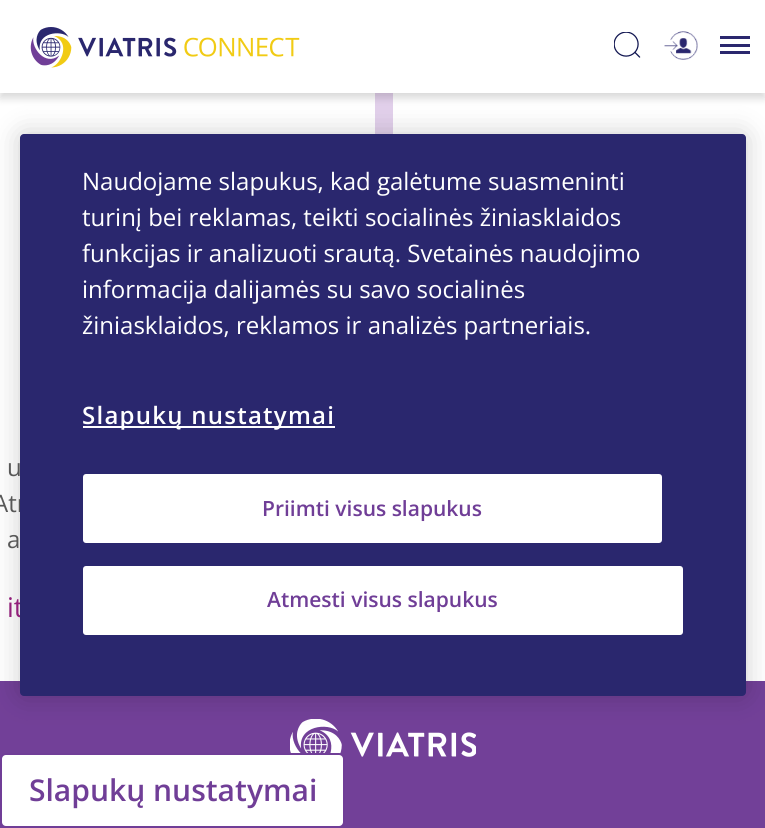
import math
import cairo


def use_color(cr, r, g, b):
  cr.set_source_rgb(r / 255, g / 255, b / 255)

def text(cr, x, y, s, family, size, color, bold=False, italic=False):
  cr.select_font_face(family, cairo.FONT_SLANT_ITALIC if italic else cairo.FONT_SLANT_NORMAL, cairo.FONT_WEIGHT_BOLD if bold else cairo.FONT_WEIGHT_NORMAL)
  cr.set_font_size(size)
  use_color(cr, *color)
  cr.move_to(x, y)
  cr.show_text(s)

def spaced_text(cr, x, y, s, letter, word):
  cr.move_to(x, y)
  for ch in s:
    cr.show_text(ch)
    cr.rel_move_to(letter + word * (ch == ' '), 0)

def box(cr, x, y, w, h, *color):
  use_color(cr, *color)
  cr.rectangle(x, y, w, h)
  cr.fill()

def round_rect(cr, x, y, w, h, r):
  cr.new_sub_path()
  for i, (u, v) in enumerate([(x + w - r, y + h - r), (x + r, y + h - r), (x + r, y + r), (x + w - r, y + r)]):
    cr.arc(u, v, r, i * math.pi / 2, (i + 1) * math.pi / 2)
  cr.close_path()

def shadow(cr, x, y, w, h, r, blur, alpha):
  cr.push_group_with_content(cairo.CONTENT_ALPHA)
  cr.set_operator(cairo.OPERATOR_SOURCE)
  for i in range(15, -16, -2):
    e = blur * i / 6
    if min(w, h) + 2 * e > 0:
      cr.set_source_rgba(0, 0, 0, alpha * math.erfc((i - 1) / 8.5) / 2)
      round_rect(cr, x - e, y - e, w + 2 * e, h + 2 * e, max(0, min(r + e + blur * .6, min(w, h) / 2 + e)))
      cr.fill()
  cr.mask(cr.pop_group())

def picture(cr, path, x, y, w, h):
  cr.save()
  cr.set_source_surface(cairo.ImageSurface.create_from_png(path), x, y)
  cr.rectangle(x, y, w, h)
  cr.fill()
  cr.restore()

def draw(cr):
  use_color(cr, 255, 255, 255)
  cr.paint()
  picture(cr, "img_04.png", 375, 93, 18, 41)
  use_color(cr, 0, 0, 0)
  shadow(cr, 0, 5, 765, 93, 0, 4.5, 0.16)
  box(cr, 0, 0, 765, 93, 255, 255, 255)
  picture(cr, "img_01.png", 30, 27, 270, 41)
  picture(cr, "img_02.png", 614, 32, 27, 26)
  picture(cr, "img_03.png", 664, 31, 34, 29)
  box(cr, 720, 36, 30, 3, 42, 39, 110)
  box(cr, 720, 44, 30, 3, 42, 39, 110)
  box(cr, 720, 51, 30, 3, 42, 39, 110)
  box(cr, 0, 681, 765, 147, 114, 64, 152)
  picture(cr, "img_05.png", 290, 719, 186, 38)
  use_color(cr, 0, 0, 0)
  shadow(cr, 20, 134, 726, 562, 4, 13.5, 0.2)
  use_color(cr, 255, 255, 255)
  round_rect(cr, 1, 754, 343, 73, 5)
  cr.fill_preserve()
  use_color(cr, 112, 62, 151)
  cr.stroke()
  text(cr, 7, 476, "u", "Open Sans", 24, (88, 88, 88))
  text(cr, -7, 512, "Atr", "Open Sans", 24, (88, 88, 88))
  text(cr, 7, 548, "a", "Open Sans", 24, (88, 88, 88))
  text(cr, 7, 617, "it", "Open Sans", 27, (145, 32, 122))
  use_color(cr, 42, 39, 110)
  round_rect(cr, 20, 134, 726, 562, 4)
  cr.fill()
  text(cr, 82, 190, "Naudojame slapukus, kad galėtume suasmeninti", "Open Sans", 24, (255, 255, 255))
  text(cr, 82, 226, "turinį bei reklamas, teikti socialinės žiniasklaidos", "Open Sans", 24, (255, 255, 255))
  text(cr, 82, 262, "funkcijas ir analizuoti srautą. Svetainės naudojimo", "Open Sans", 24, (255, 255, 255))
  text(cr, 82, 298, "informacija dalijamės su savo socialinės", "Open Sans", 24, (255, 255, 255))
  text(cr, 82, 334, "žiniasklaidos, reklamos ir analizės partneriais.", "Open Sans", 24, (255, 255, 255))
  box(cr, 83, 426, 252, 2, 255, 255, 255)
  cr.select_font_face("Open Sans SemiBold")
  spaced_text(cr, 82, 424, "Slapukų nustatymai", 1.25, 0)
  round_rect(cr, 84, 475, 577, 67, 2)
  cr.fill_preserve()
  cr.stroke()
  text(cr, 262, 516, "Priimti visus slapukus", "Open Sans SemiBold", 21, (112, 62, 151))
  use_color(cr, 255, 255, 255)
  round_rect(cr, 84, 567, 598, 67, 2)
  cr.fill_preserve()
  cr.stroke()
  text(cr, 267, 607, "Atmesti visus slapukus", "Open Sans SemiBold", 21, (112, 62, 151))
  text(cr, 29, 801, "Slapukų nustatymai", "Open Sans SemiBold", 30, (112, 62, 151))


surface = cairo.ImageSurface(cairo.FORMAT_RGB24, 765, 828)
cr = cairo.Context(surface)
options = cairo.FontOptions()
options.set_hint_metrics(cairo.HINT_METRICS_OFF)
options.set_hint_style(cairo.HINT_STYLE_NONE)
cr.set_font_options(options)
cr.set_miter_limit(4)
draw(cr)
surface.write_to_png("out.png")
